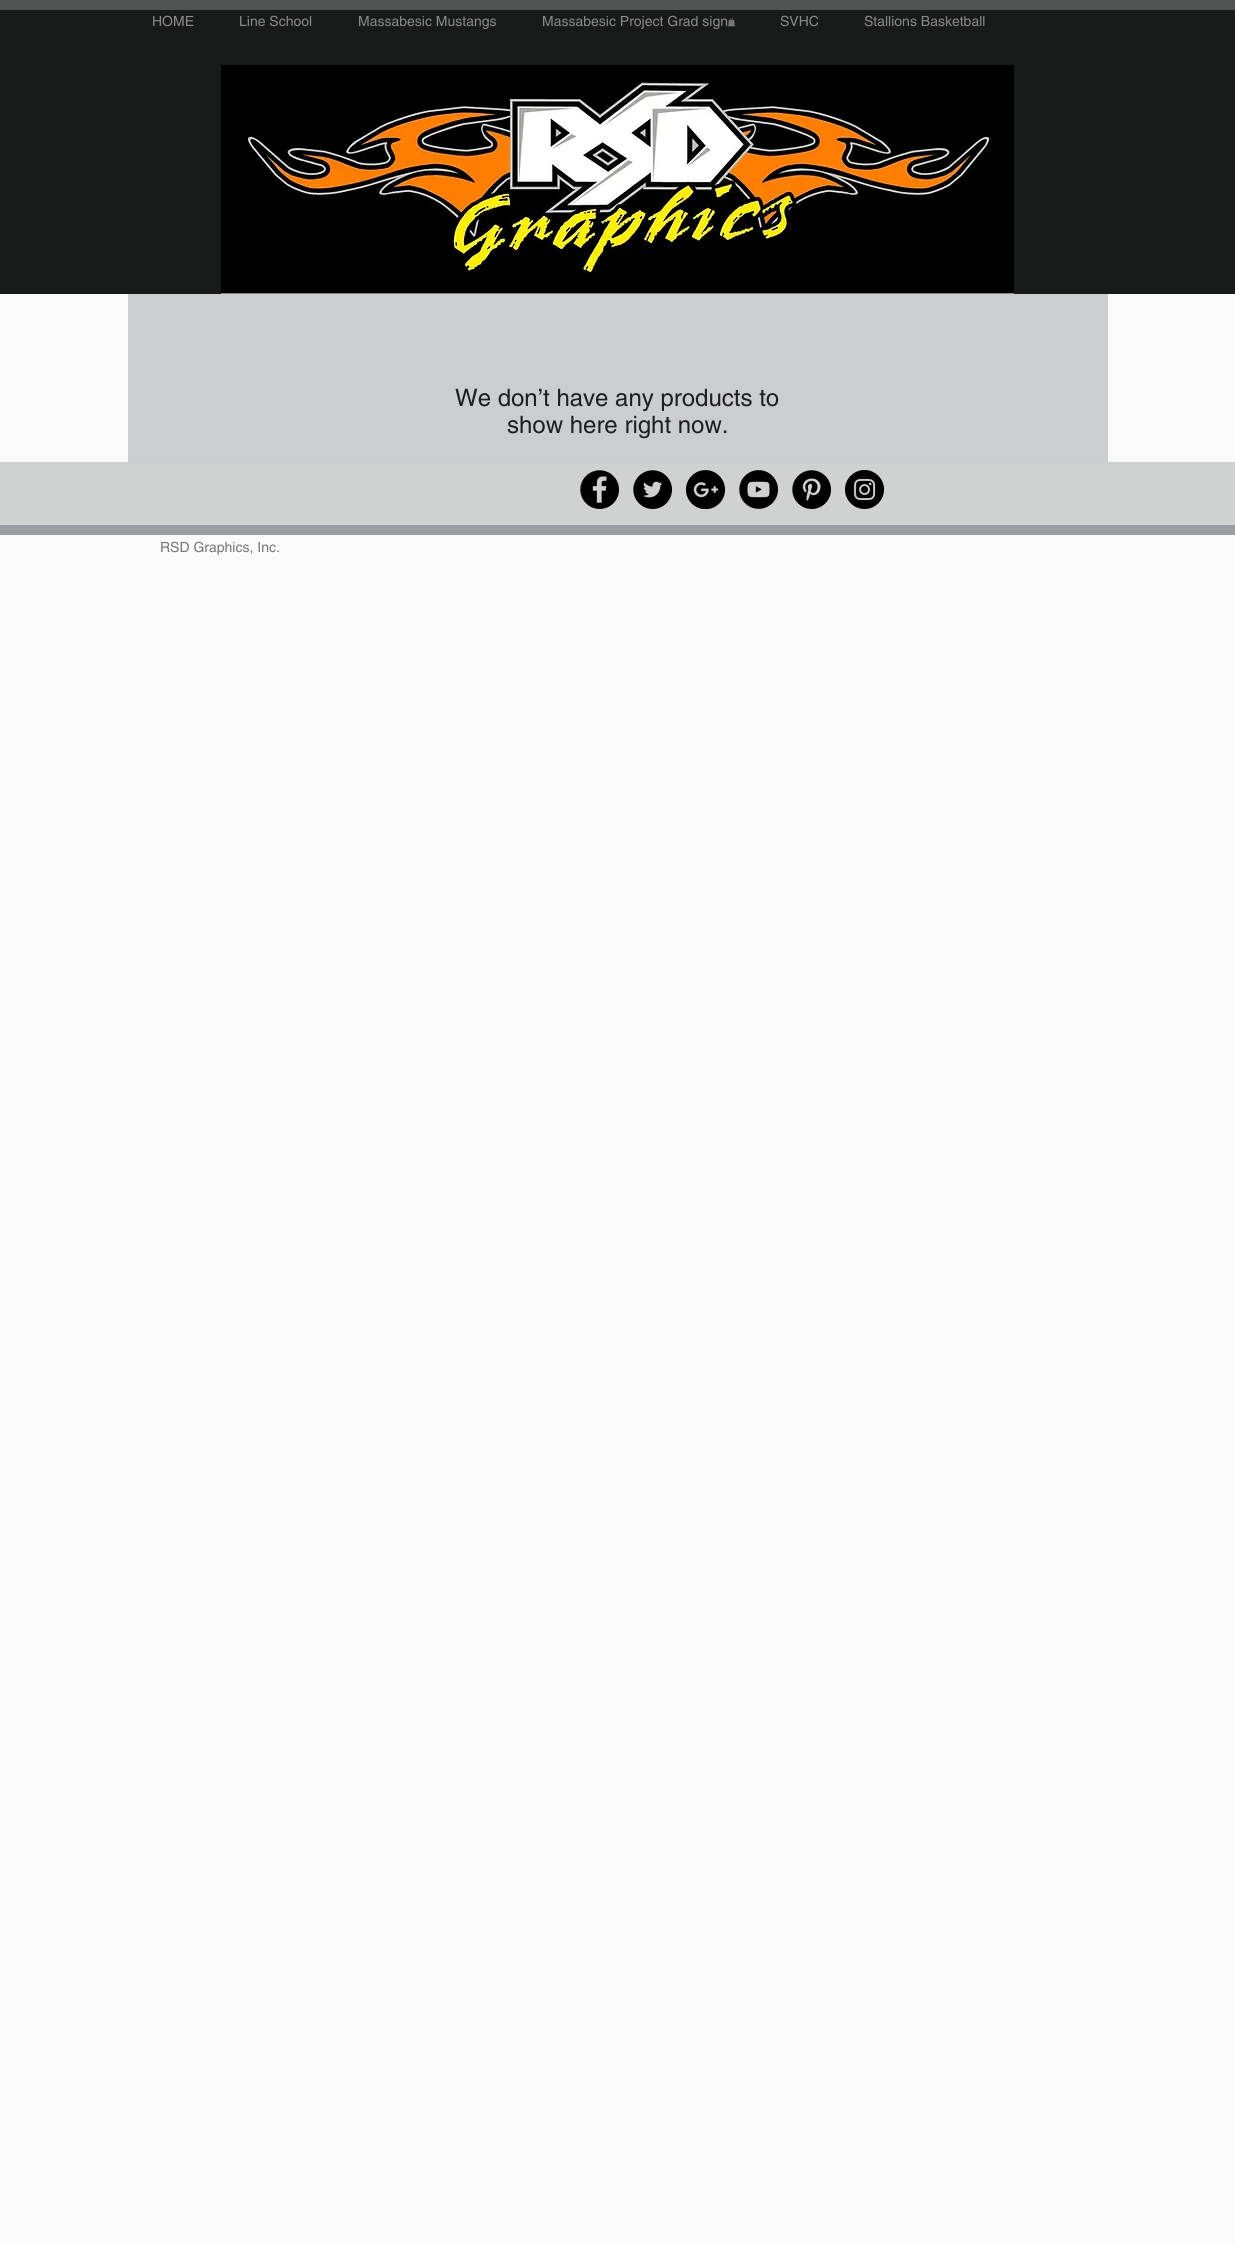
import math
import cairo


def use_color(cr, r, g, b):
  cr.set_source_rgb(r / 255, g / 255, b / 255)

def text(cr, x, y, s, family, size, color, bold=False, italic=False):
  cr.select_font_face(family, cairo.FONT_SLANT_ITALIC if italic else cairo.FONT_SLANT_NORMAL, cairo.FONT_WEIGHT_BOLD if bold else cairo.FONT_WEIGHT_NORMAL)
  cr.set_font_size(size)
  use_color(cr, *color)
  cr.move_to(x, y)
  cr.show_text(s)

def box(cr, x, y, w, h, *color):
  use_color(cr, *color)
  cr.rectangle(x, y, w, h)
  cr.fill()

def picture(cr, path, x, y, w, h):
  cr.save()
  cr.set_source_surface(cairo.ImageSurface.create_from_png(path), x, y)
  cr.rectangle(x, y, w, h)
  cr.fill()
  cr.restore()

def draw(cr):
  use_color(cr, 250, 250, 250)
  cr.paint()
  box(cr, 0, 10, 1235, 284, 24, 25, 25)
  box(cr, 0, 0, 1235, 10, 82, 84, 84)
  picture(cr, "img_01.png", 728, 18, 7, 9)
  picture(cr, "img_02.png", 221, 65, 793, 229)
  box(cr, 128, 294, 980, 168, 203, 206, 207)
  box(cr, 0, 462, 1235, 63, 208, 210, 210)
  picture(cr, "img_03.png", 580, 470, 39, 39)
  picture(cr, "img_04.png", 633, 470, 39, 39)
  picture(cr, "img_05.png", 686, 470, 39, 39)
  picture(cr, "img_06.png", 739, 470, 39, 39)
  picture(cr, "img_07.png", 792, 470, 39, 39)
  picture(cr, "img_08.png", 845, 470, 39, 39)
  box(cr, 0, 525, 1235, 10, 155, 158, 160)
  text(cr, 152, 26, "HOME", "helvetica", 14, (136, 138, 138))
  text(cr, 239, 26, "Line School", "helvetica", 14, (136, 138, 138))
  text(cr, 358, 26, "Massabesic Mustangs", "helvetica", 14, (136, 138, 138))
  text(cr, 542, 26, "Massabesic Project Grad sign", "helvetica", 14, (136, 138, 138))
  text(cr, 780, 26, "SVHC", "helvetica", 14, (136, 138, 138))
  text(cr, 864, 26, "Stallions Basketball", "helvetica", 14, (136, 138, 138))
  text(cr, 455, 406, "We don’t have any products to", "helvetica", 24, (30, 31, 32))
  text(cr, 507, 433, "show here right now.", "helvetica", 24, (30, 31, 32))
  text(cr, 160, 552, "RSD Graphics, Inc.", "helvetica", 14, (116, 117, 117))


surface = cairo.ImageSurface(cairo.FORMAT_RGB24, 1235, 2243)
cr = cairo.Context(surface)
options = cairo.FontOptions()
options.set_hint_metrics(cairo.HINT_METRICS_OFF)
options.set_hint_style(cairo.HINT_STYLE_NONE)
cr.set_font_options(options)
cr.set_miter_limit(4)
draw(cr)
surface.write_to_png("out.png")
